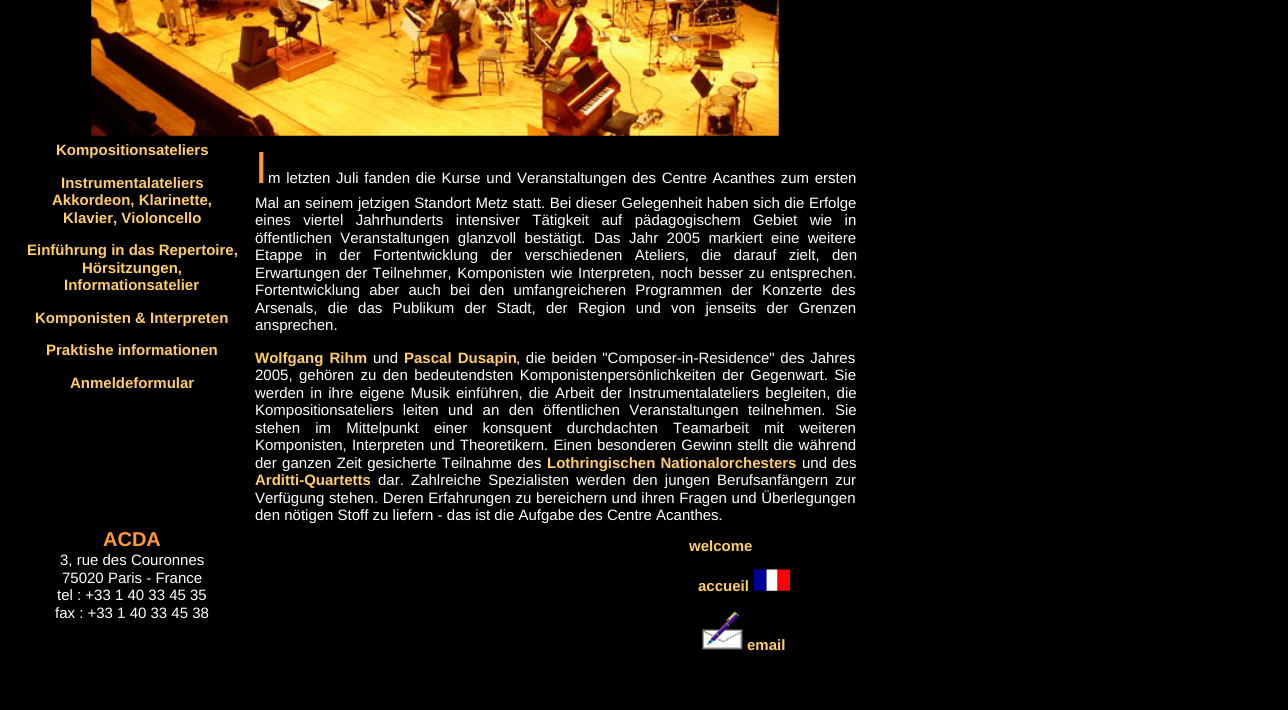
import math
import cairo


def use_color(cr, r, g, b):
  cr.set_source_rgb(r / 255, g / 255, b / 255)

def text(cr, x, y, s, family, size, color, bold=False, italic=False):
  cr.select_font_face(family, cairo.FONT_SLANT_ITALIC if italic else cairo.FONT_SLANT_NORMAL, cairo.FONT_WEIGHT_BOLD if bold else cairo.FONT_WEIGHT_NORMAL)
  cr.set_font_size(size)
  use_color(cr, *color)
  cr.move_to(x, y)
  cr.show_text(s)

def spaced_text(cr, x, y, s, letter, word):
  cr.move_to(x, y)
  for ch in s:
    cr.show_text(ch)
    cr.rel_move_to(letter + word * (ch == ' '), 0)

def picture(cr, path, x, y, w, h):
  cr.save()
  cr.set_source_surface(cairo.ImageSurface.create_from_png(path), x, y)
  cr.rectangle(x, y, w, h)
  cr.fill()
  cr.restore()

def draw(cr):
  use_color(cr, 0, 0, 0)
  cr.paint()
  picture(cr, "img_01.png", 91, 0, 688, 136)
  picture(cr, "img_02.png", 753, 569, 37, 22)
  picture(cr, "img_03.png", 702, 611, 41, 39)
  text(cr, 56, 155, "Kompositionsateliers", "Liberation Sans", 15, (255, 204, 102), bold=True)
  text(cr, 61, 188, "Instrumentalateliers", "Liberation Sans", 15, (255, 204, 102), bold=True)
  text(cr, 52, 205, "Akkordeon, Klarinette,", "Liberation Sans", 15, (255, 204, 102), bold=True)
  text(cr, 63, 223, "Klavier, Violoncello", "Liberation Sans", 15, (255, 204, 102), bold=True)
  text(cr, 27, 255, "Einführung in das Repertoire,", "Liberation Sans", 15, (255, 204, 102), bold=True)
  text(cr, 82, 273, "Hörsitzungen,", "Liberation Sans", 15, (255, 204, 102), bold=True)
  text(cr, 64, 290, "Informationsatelier", "Liberation Sans", 15, (255, 204, 102), bold=True)
  text(cr, 35, 323, "Komponisten & Interpreten", "Liberation Sans", 15, (255, 204, 102), bold=True)
  text(cr, 46, 355, "Praktishe informationen", "Liberation Sans", 15, (255, 204, 102), bold=True)
  text(cr, 70, 388, "Anmeldeformular", "Liberation Sans", 15, (255, 204, 102), bold=True)
  text(cr, 255, 183, "I", "Liberation Sans", 45, (255, 153, 51))
  cr.set_font_size(15)
  use_color(cr, 255, 255, 255)
  spaced_text(cr, 268, 183, "m letzten Juli fanden die Kurse und Veranstaltungen des Centre Acanthes zum ersten", 0, 1.5)
  spaced_text(cr, 255, 208, "Mal an seinem jetzigen Standort Metz statt. Bei dieser Gelegenheit haben sich die Erfolge", 0, 0.4)
  spaced_text(cr, 255, 225, "eines viertel Jahrhunderts intensiver Tätigkeit auf pädagogischem Gebiet wie in", 0, 8.25)
  spaced_text(cr, 255, 243, "öffentlichen Veranstaltungen glanzvoll bestätigt. Das Jahr 2005 markiert eine weitere", 0, 4.25)
  spaced_text(cr, 255, 260, "Etappe in der Fortentwicklung der verschiedenen Ateliers, die darauf zielt, den", 0, 8.25)
  spaced_text(cr, 255, 278, "Erwartungen der Teilnehmer, Komponisten wie Interpreten, noch besser zu entsprechen.", 0, 1.25)
  spaced_text(cr, 255, 295, "Fortentwicklung aber auch bei den umfangreicheren Programmen der Konzerte des", 0, 5)
  spaced_text(cr, 255, 313, "Arsenals, die das Publikum der Stadt, der Region und von jenseits der Grenzen", 0, 6.1)
  text(cr, 255, 330, "ansprechen.", "Liberation Sans", 15, (255, 255, 255))
  cr.select_font_face("Liberation Sans", cairo.FONT_SLANT_NORMAL, cairo.FONT_WEIGHT_BOLD)
  use_color(cr, 255, 204, 102)
  spaced_text(cr, 255, 363, "Wolfgang Rihm", 0, 2)
  text(cr, 373, 363, "und", "Liberation Sans", 15, (255, 255, 255))
  cr.select_font_face("Liberation Sans", cairo.FONT_SLANT_NORMAL, cairo.FONT_WEIGHT_BOLD)
  use_color(cr, 255, 204, 102)
  spaced_text(cr, 404, 363, "Pascal Dusapin", 0, 2)
  cr.select_font_face("Liberation Sans")
  use_color(cr, 255, 255, 255)
  spaced_text(cr, 516, 363, ", die beiden \"Composer-in-Residence\" des Jahres", 0, 1.5)
  spaced_text(cr, 255, 380, "2005, gehören zu den bedeutendsten Komponistenpersönlichkeiten der Gegenwart. Sie", 0, 2.25)
  spaced_text(cr, 255, 398, "werden in ihre eigene Musik einführen, die Arbeit der Instrumentalateliers begleiten, die", 0, 2)
  spaced_text(cr, 255, 415, "Kompositionsateliers leiten und an den öffentlichen Veranstaltungen teilnehmen. Sie", 0, 5.25)
  spaced_text(cr, 255, 433, "stehen im Mittelpunkt einer konsquent durchdachten Teamarbeit mit weiteren", 0, 11)
  spaced_text(cr, 255, 450, "Komponisten, Interpreten und Theoretikern. Einen besonderen Gewinn stellt die während", 0, 1)
  spaced_text(cr, 255, 468, "der ganzen Zeit gesicherte Teilnahme des", 0, 1.25)
  cr.select_font_face("Liberation Sans", cairo.FONT_SLANT_NORMAL, cairo.FONT_WEIGHT_BOLD)
  use_color(cr, 255, 204, 102)
  spaced_text(cr, 547, 468, "Lothringischen Nationalorchesters", 0, 1)
  cr.select_font_face("Liberation Sans")
  use_color(cr, 255, 255, 255)
  spaced_text(cr, 802, 468, "und des", 0, 1)
  text(cr, 255, 485, "Arditti-Quartetts", "Liberation Sans", 15, (255, 204, 102), bold=True)
  cr.select_font_face("Liberation Sans")
  use_color(cr, 255, 255, 255)
  spaced_text(cr, 378, 485, "dar. Zahlreiche Spezialisten werden den jungen Berufsanfängern zur", 0, 3)
  spaced_text(cr, 255, 503, "Verfügung stehen. Deren Erfahrungen zu bereichern und ihren Fragen und Überlegungen", 0, 0.5)
  text(cr, 255, 520, "den nötigen Stoff zu liefern - das ist die Aufgabe des Centre Acanthes.", "Liberation Sans", 15, (255, 255, 255))
  text(cr, 103, 546, "ACDA", "Liberation Sans", 20, (255, 153, 51), bold=True)
  text(cr, 60, 565, "3, rue des Couronnes", "Liberation Sans", 15, (255, 255, 255))
  text(cr, 62, 583, "75020 Paris - France", "Liberation Sans", 15, (255, 255, 255))
  text(cr, 57, 600, "tel : +33 1 40 33 45 35", "Liberation Sans", 15, (255, 255, 255))
  text(cr, 55, 618, "fax : +33 1 40 33 45 38", "Liberation Sans", 15, (255, 255, 255))
  text(cr, 689, 551, "welcome", "Liberation Sans", 15, (255, 204, 102), bold=True)
  text(cr, 698, 591, "accueil", "Liberation Sans", 15, (255, 204, 102), bold=True)
  text(cr, 747, 650, "email", "Liberation Sans", 15, (255, 204, 102), bold=True)


surface = cairo.ImageSurface(cairo.FORMAT_RGB24, 1288, 710)
cr = cairo.Context(surface)
options = cairo.FontOptions()
options.set_hint_metrics(cairo.HINT_METRICS_OFF)
options.set_hint_style(cairo.HINT_STYLE_NONE)
cr.set_font_options(options)
cr.set_miter_limit(4)
draw(cr)
surface.write_to_png("out.png")
